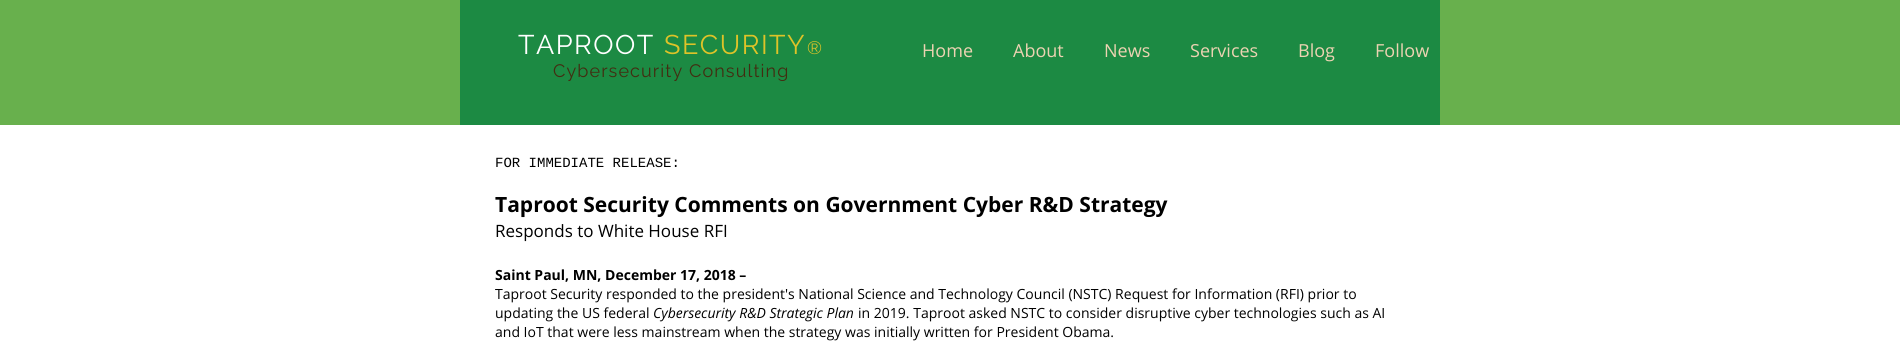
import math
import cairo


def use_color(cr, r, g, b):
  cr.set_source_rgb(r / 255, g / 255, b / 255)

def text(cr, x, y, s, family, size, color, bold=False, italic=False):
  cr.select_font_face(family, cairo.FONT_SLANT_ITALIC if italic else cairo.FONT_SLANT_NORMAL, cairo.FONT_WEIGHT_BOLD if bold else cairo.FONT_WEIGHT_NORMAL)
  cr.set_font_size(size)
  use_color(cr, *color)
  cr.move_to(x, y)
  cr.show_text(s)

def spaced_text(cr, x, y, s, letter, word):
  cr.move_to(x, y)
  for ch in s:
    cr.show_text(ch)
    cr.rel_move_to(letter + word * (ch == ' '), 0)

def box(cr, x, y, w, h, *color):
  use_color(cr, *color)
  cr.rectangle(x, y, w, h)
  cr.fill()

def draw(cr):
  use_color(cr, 255, 255, 255)
  cr.paint()
  box(cr, 0, 0, 1900, 125, 104, 176, 77)
  box(cr, 460, 0, 980, 125, 28, 138, 67)
  cr.select_font_face("Raleway")
  cr.set_font_size(27)
  use_color(cr, 255, 255, 255)
  spaced_text(cr, 518, 54, "TAPROOT", 1.5, 0)
  use_color(cr, 222, 195, 40)
  spaced_text(cr, 664, 54, "SECURITY", 1.5, 0)
  cr.set_font_size(18)
  spaced_text(cr, 807, 54, "®", 1.1, 0)
  use_color(cr, 66, 45, 17)
  spaced_text(cr, 553, 77, "Cybersecurity Consulting", 1.1, 0)
  text(cr, 922, 57, "Home", "Open Sans", 18, (236, 211, 178))
  text(cr, 1013, 57, "About", "Open Sans", 18, (236, 211, 178))
  text(cr, 1104, 57, "News", "Open Sans", 18, (236, 211, 178))
  text(cr, 1190, 57, "Services", "Open Sans", 18, (236, 211, 178))
  text(cr, 1298, 57, "Blog", "Open Sans", 18, (236, 211, 178))
  text(cr, 1375, 57, "Follow", "Open Sans", 18, (236, 211, 178))
  text(cr, 495, 167, "FOR IMMEDIATE RELEASE:", "Liberation Mono", 14, (0, 0, 0))
  text(cr, 495, 212, "Taproot Security Comments on Government Cyber R&D Strategy", "Open Sans", 21, (0, 0, 0), bold=True)
  text(cr, 495, 237, "Responds to White House RFI", "Open Sans", 17, (0, 0, 0))
  text(cr, 495, 280, "Saint Paul, MN, December 17, 2018 –", "Open Sans", 14, (0, 0, 0), bold=True)
  text(cr, 495, 299, "Taproot Security responded to the president's National Science and Technology Council (NSTC) Request for Information (RFI) prior to", "Open Sans", 14, (0, 0, 0))
  text(cr, 495, 318, "updating the US federal", "Open Sans", 14, (0, 0, 0))
  text(cr, 653, 318, "Cybersecurity R&D Strategic Plan", "Open Sans", 14, (0, 0, 0), italic=True)
  text(cr, 858, 318, "in 2019. Taproot asked NSTC to consider disruptive cyber technologies such as AI", "Open Sans", 14, (0, 0, 0))
  text(cr, 495, 337, "and IoT that were less mainstream when the strategy was initially written for President Obama.", "Open Sans", 14, (0, 0, 0))


surface = cairo.ImageSurface(cairo.FORMAT_RGB24, 1900, 342)
cr = cairo.Context(surface)
options = cairo.FontOptions()
options.set_hint_metrics(cairo.HINT_METRICS_OFF)
options.set_hint_style(cairo.HINT_STYLE_NONE)
cr.set_font_options(options)
cr.set_miter_limit(4)
draw(cr)
surface.write_to_png("out.png")
